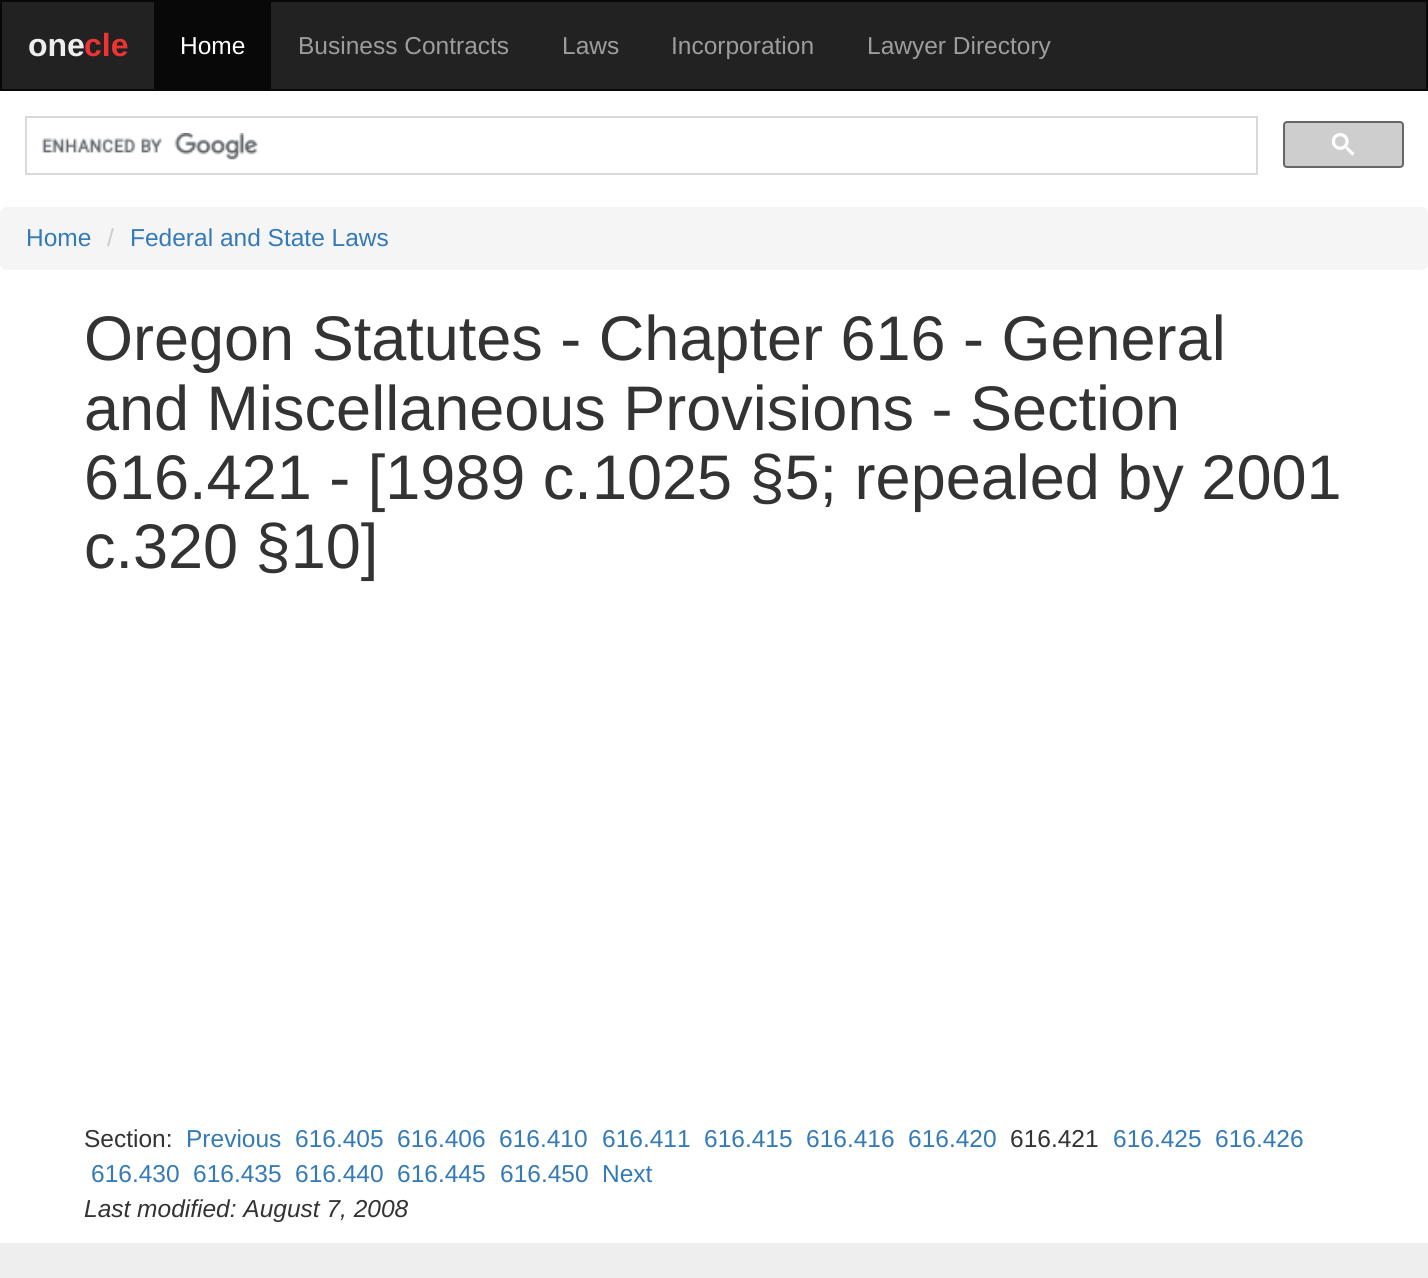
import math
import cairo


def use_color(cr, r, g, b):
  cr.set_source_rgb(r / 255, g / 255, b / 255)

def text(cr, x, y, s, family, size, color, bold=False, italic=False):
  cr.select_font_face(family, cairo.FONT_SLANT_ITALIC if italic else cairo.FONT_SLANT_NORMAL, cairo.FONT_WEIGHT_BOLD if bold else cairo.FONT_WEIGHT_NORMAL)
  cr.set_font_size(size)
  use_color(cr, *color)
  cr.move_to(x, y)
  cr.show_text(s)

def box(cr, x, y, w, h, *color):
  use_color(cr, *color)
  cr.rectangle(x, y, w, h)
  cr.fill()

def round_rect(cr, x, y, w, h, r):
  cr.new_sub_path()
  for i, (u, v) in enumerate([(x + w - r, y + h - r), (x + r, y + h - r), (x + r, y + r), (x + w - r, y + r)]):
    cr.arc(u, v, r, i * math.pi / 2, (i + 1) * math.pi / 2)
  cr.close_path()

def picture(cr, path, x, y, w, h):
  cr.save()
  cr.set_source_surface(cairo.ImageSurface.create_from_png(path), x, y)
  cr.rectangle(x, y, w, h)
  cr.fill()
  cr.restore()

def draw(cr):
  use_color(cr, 255, 255, 255)
  cr.paint()
  use_color(cr, 34, 34, 34)
  cr.rectangle(1, 1, 1426, 89)
  cr.fill_preserve()
  use_color(cr, 8, 8, 8)
  cr.stroke()
  box(cr, 154, 2, 117, 87, 8, 8, 8)
  cr.rectangle(26, 117, 1231, 57)
  use_color(cr, 217, 217, 217)
  cr.stroke()
  picture(cr, "img_01.png", 42, 133, 216, 27)
  use_color(cr, 206, 206, 206)
  round_rect(cr, 1284, 122, 119, 45, 3)
  cr.fill_preserve()
  use_color(cr, 102, 102, 102)
  cr.stroke()
  picture(cr, "img_02.png", 1332, 133, 23, 23)
  use_color(cr, 245, 245, 245)
  round_rect(cr, 0, 207, 1428, 63, 7)
  cr.fill()
  box(cr, 0, 1243, 1428, 35, 238, 238, 238)
  text(cr, 28, 56, "one", "Liberation Sans", 32, (238, 238, 238), bold=True)
  text(cr, 84, 56, "cle", "Liberation Sans", 32, (238, 51, 51), bold=True)
  text(cr, 180, 54, "Home", "Liberation Sans", 24.5, (255, 255, 255))
  text(cr, 298, 54, "Business Contracts", "Liberation Sans", 24.5, (157, 157, 157))
  text(cr, 562, 54, "Laws", "Liberation Sans", 24.5, (157, 157, 157))
  text(cr, 671, 54, "Incorporation", "Liberation Sans", 24.5, (157, 157, 157))
  text(cr, 867, 54, "Lawyer Directory", "Liberation Sans", 24.5, (157, 157, 157))
  text(cr, 26, 246, "Home", "Liberation Sans", 24.5, (51, 122, 183))
  text(cr, 107, 246, "/", "Liberation Sans", 24.5, (204, 204, 204))
  text(cr, 130, 246, "Federal and State Laws", "Liberation Sans", 24.5, (51, 122, 183))
  text(cr, 84, 360, "Oregon Statutes - Chapter 616 - General", "Liberation Sans", 63, (51, 51, 51))
  text(cr, 84, 430, "and Miscellaneous Provisions - Section", "Liberation Sans", 63, (51, 51, 51))
  text(cr, 84, 499, "616.421 - [1989 c.1025 §5; repealed by 2001", "Liberation Sans", 63, (51, 51, 51))
  text(cr, 84, 568, "c.320 §10]", "Liberation Sans", 63, (51, 51, 51))
  text(cr, 84, 1147, "Section:", "Liberation Sans", 24.5, (51, 51, 51))
  text(cr, 186, 1147, "Previous", "Liberation Sans", 24.5, (51, 122, 183))
  text(cr, 295, 1147, "616.405", "Liberation Sans", 24.5, (51, 122, 183))
  text(cr, 397, 1147, "616.406", "Liberation Sans", 24.5, (51, 122, 183))
  text(cr, 499, 1147, "616.410", "Liberation Sans", 24.5, (51, 122, 183))
  text(cr, 602, 1147, "616.411", "Liberation Sans", 24.5, (51, 122, 183))
  text(cr, 704, 1147, "616.415", "Liberation Sans", 24.5, (51, 122, 183))
  text(cr, 806, 1147, "616.416", "Liberation Sans", 24.5, (51, 122, 183))
  text(cr, 908, 1147, "616.420", "Liberation Sans", 24.5, (51, 122, 183))
  text(cr, 1010, 1147, "616.421", "Liberation Sans", 24.5, (51, 51, 51))
  text(cr, 1113, 1147, "616.425", "Liberation Sans", 24.5, (51, 122, 183))
  text(cr, 1215, 1147, "616.426", "Liberation Sans", 24.5, (51, 122, 183))
  text(cr, 91, 1182, "616.430", "Liberation Sans", 24.5, (51, 122, 183))
  text(cr, 193, 1182, "616.435", "Liberation Sans", 24.5, (51, 122, 183))
  text(cr, 295, 1182, "616.440", "Liberation Sans", 24.5, (51, 122, 183))
  text(cr, 397, 1182, "616.445", "Liberation Sans", 24.5, (51, 122, 183))
  text(cr, 500, 1182, "616.450", "Liberation Sans", 24.5, (51, 122, 183))
  text(cr, 602, 1182, "Next", "Liberation Sans", 24.5, (51, 122, 183))
  text(cr, 84, 1217, "Last modified: August 7, 2008", "Liberation Sans", 24.5, (51, 51, 51), italic=True)


surface = cairo.ImageSurface(cairo.FORMAT_RGB24, 1428, 1278)
cr = cairo.Context(surface)
options = cairo.FontOptions()
options.set_hint_metrics(cairo.HINT_METRICS_OFF)
options.set_hint_style(cairo.HINT_STYLE_NONE)
cr.set_font_options(options)
cr.set_miter_limit(4)
draw(cr)
surface.write_to_png("out.png")
